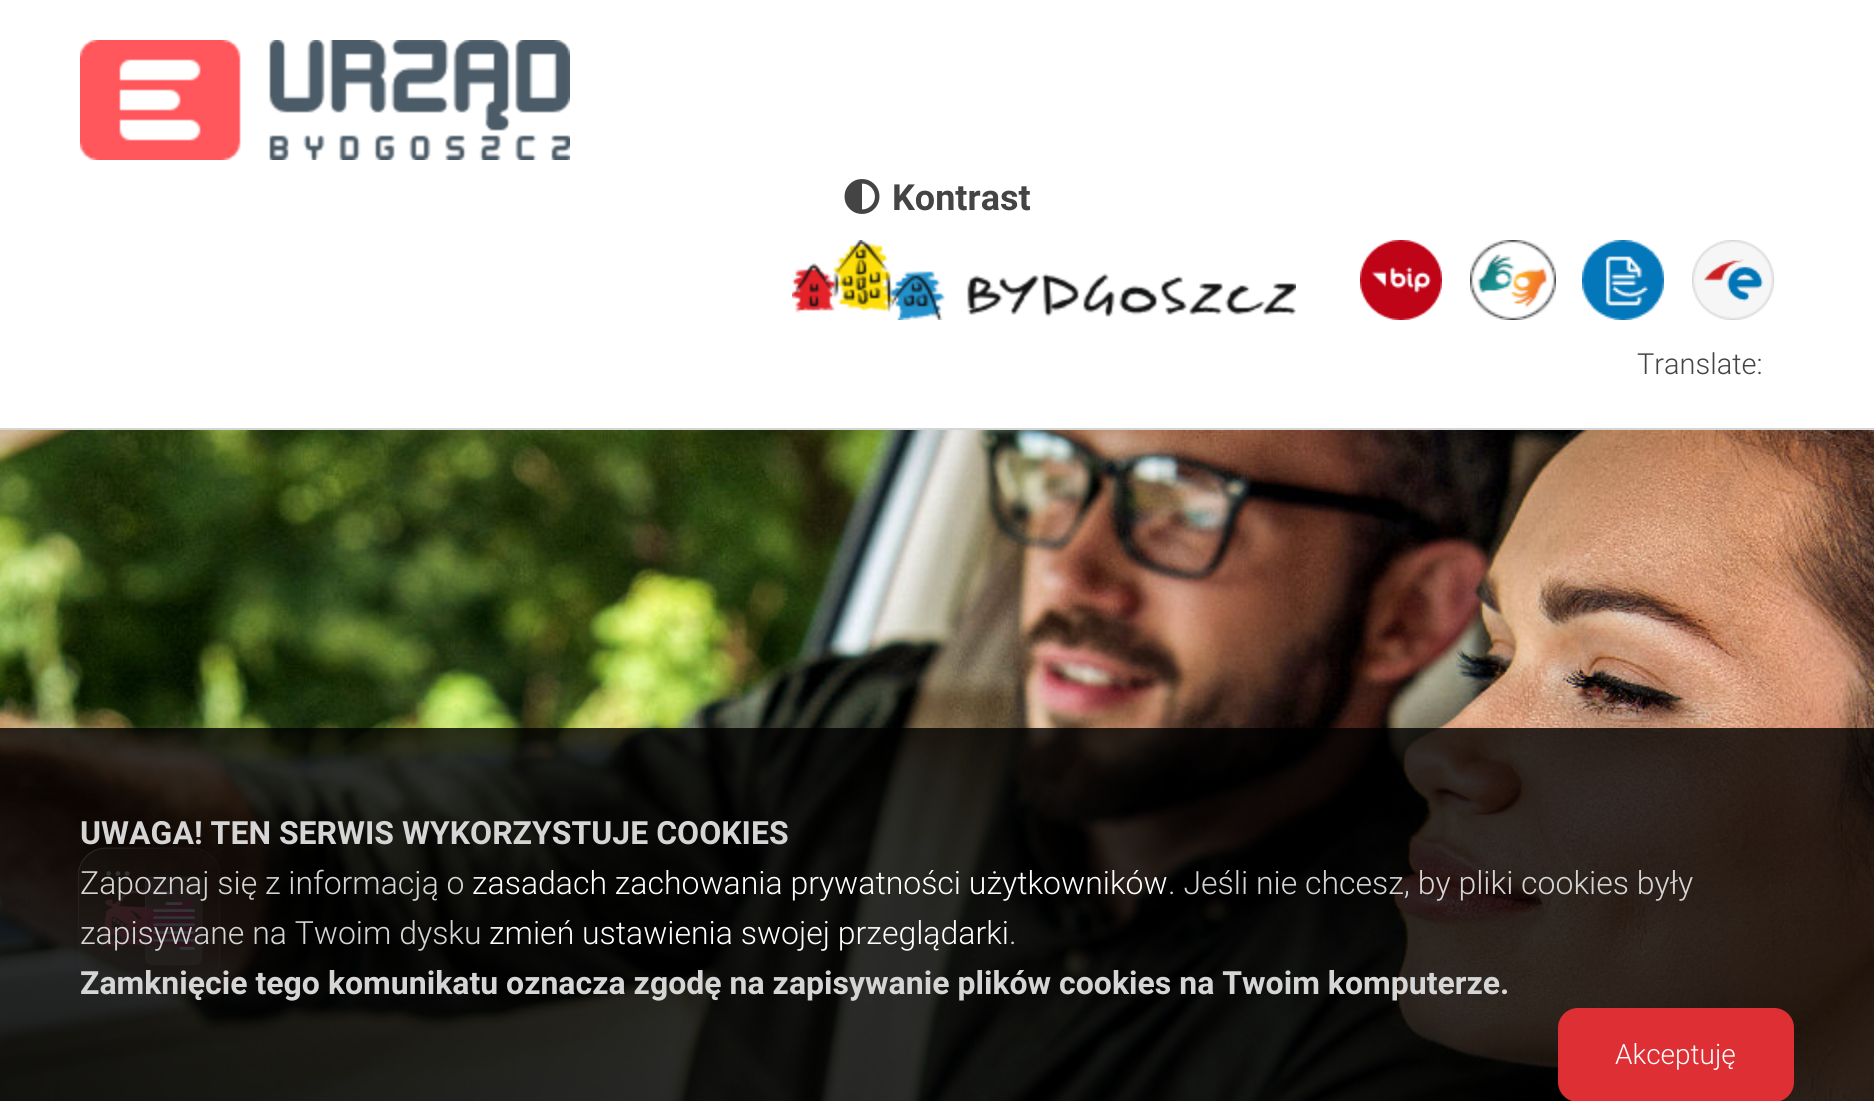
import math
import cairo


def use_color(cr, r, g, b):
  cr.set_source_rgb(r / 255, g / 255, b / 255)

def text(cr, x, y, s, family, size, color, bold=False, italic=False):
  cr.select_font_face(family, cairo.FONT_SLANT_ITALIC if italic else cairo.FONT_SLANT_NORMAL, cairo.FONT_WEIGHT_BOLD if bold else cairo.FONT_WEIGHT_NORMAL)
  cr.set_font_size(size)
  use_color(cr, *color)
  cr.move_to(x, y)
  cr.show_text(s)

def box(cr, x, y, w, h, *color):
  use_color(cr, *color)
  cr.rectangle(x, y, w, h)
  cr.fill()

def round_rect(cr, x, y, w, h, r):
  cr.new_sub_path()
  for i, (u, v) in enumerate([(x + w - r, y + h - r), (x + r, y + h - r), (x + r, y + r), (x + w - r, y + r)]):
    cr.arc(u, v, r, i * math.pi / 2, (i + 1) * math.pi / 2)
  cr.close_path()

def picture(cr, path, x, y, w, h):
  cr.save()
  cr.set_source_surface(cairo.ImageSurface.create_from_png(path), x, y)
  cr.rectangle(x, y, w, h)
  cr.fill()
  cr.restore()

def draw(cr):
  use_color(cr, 255, 255, 255)
  cr.paint()
  box(cr, 0, 428, 1874, 2, 213, 213, 213)
  picture(cr, "img_01.png", 80, 40, 490, 120)
  picture(cr, "img_02.png", 844, 179, 36, 35)
  picture(cr, "img_03.png", 792, 240, 504, 80)
  picture(cr, "img_04.png", 1360, 240, 82, 80)
  picture(cr, "img_05.png", 1470, 240, 86, 80)
  picture(cr, "img_06.png", 1582, 240, 82, 80)
  picture(cr, "img_07.png", 1692, 240, 82, 80)
  picture(cr, "img_08.png", 0, 430, 1874, 671)
  picture(cr, "img_09.png", 74, 847, 149, 146)
  cr.set_source_rgba(0, 0, 0, 0.8)
  cr.rectangle(0, 728, 1874, 373)
  cr.fill()
  use_color(cr, 222, 47, 52)
  round_rect(cr, 1558, 1008, 236, 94, 20)
  cr.fill()
  text(cr, 892, 210, "Kontrast", "Roboto", 36, (68, 68, 68), bold=True)
  text(cr, 1637, 374, "Translate:", "Roboto Light", 29, (68, 68, 68))
  text(cr, 80, 844, "UWAGA! TEN SERWIS WYKORZYSTUJE COOKIES", "Roboto", 32, (213, 213, 213), bold=True)
  text(cr, 80, 894, "Zapoznaj się z informacją o", "Roboto Light", 32, (213, 213, 213))
  text(cr, 472, 894, "zasadach zachowania prywatności użytkowników", "Roboto Light", 32, (255, 255, 255))
  text(cr, 1168, 894, ". Jeśli nie chcesz, by pliki cookies były", "Roboto Light", 32, (213, 213, 213))
  text(cr, 80, 944, "zapisywane na Twoim dysku", "Roboto Light", 32, (213, 213, 213))
  text(cr, 489, 944, "zmień ustawienia swojej przeglądarki", "Roboto Light", 32, (255, 255, 255))
  text(cr, 1009, 944, ".", "Roboto Light", 32, (213, 213, 213))
  text(cr, 80, 994, "Zamknięcie tego komunikatu oznacza zgodę na zapisywanie plików cookies na Twoim komputerze.", "Roboto", 32, (213, 213, 213), bold=True)
  text(cr, 1615, 1064, "Akceptuję", "Roboto Light", 28, (255, 255, 255))


surface = cairo.ImageSurface(cairo.FORMAT_RGB24, 1874, 1101)
cr = cairo.Context(surface)
options = cairo.FontOptions()
options.set_hint_metrics(cairo.HINT_METRICS_OFF)
options.set_hint_style(cairo.HINT_STYLE_NONE)
cr.set_font_options(options)
cr.set_miter_limit(4)
draw(cr)
surface.write_to_png("out.png")
